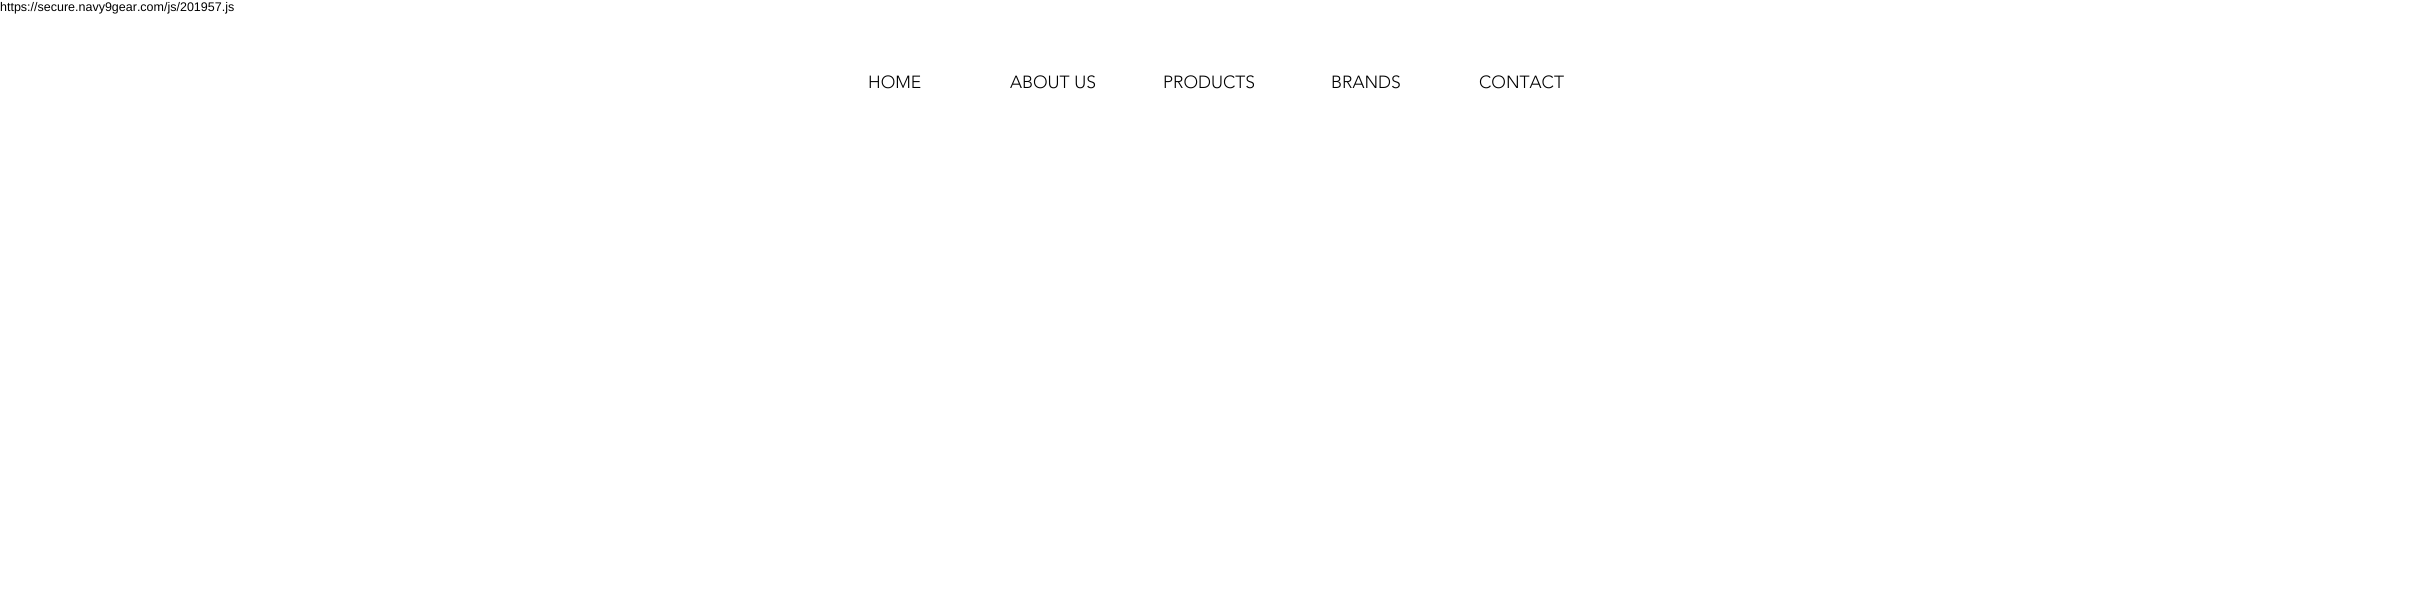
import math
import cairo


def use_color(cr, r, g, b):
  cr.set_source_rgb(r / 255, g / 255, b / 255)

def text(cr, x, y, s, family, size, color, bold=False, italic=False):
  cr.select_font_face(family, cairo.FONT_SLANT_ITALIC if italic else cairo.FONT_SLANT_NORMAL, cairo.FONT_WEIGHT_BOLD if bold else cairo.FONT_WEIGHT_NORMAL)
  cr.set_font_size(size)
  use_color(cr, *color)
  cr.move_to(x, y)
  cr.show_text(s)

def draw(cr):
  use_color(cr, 255, 255, 255)
  cr.paint()
  text(cr, 0, 11, "https://secure.navy9gear.com/js/201957.js", "Liberation Sans", 12.5, (0, 0, 0))
  text(cr, 868, 88, "HOME", "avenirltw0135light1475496 Light", 17.5, (0, 0, 0))
  text(cr, 1010, 88, "ABOUT US", "avenirltw0135light1475496 Light", 17.5, (0, 0, 0))
  text(cr, 1163, 88, "PRODUCTS", "avenirltw0135light1475496 Light", 17.5, (0, 0, 0))
  text(cr, 1331, 88, "BRANDS", "avenirltw0135light1475496 Light", 17.5, (0, 0, 0))
  text(cr, 1479, 88, "CONTACT", "avenirltw0135light1475496 Light", 17.5, (0, 0, 0))


surface = cairo.ImageSurface(cairo.FORMAT_RGB24, 2416, 611)
cr = cairo.Context(surface)
options = cairo.FontOptions()
options.set_hint_metrics(cairo.HINT_METRICS_OFF)
options.set_hint_style(cairo.HINT_STYLE_NONE)
cr.set_font_options(options)
cr.set_miter_limit(4)
draw(cr)
surface.write_to_png("out.png")
